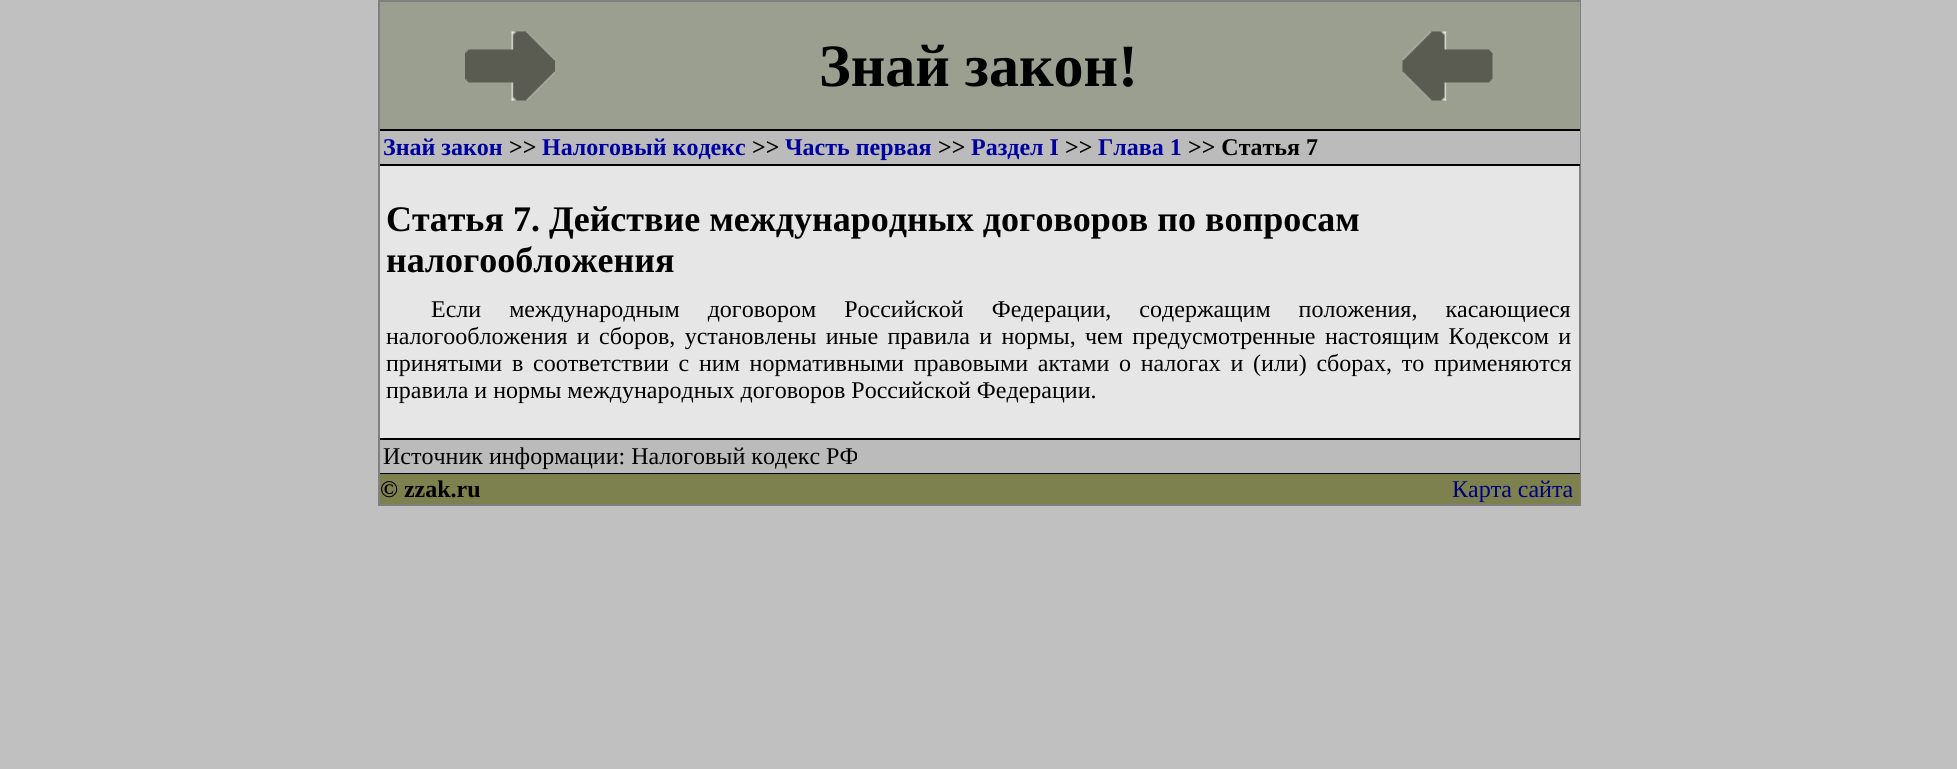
import math
import cairo


def use_color(cr, r, g, b):
  cr.set_source_rgb(r / 255, g / 255, b / 255)

def text(cr, x, y, s, family, size, color, bold=False, italic=False):
  cr.select_font_face(family, cairo.FONT_SLANT_ITALIC if italic else cairo.FONT_SLANT_NORMAL, cairo.FONT_WEIGHT_BOLD if bold else cairo.FONT_WEIGHT_NORMAL)
  cr.set_font_size(size)
  use_color(cr, *color)
  cr.move_to(x, y)
  cr.show_text(s)

def spaced_text(cr, x, y, s, letter, word):
  cr.move_to(x, y)
  for ch in s:
    cr.show_text(ch)
    cr.rel_move_to(letter + word * (ch == ' '), 0)

def box(cr, x, y, w, h, *color):
  use_color(cr, *color)
  cr.rectangle(x, y, w, h)
  cr.fill()

def picture(cr, path, x, y, w, h):
  cr.save()
  cr.set_source_surface(cairo.ImageSurface.create_from_png(path), x, y)
  cr.rectangle(x, y, w, h)
  cr.fill()
  cr.restore()

def draw(cr):
  use_color(cr, 192, 192, 192)
  cr.paint()
  box(cr, 380, 166, 1199, 272, 230, 230, 230)
  cr.rectangle(379, 1, 1201, 504)
  use_color(cr, 128, 128, 128)
  cr.stroke()
  box(cr, 380, 2, 1200, 127, 155, 159, 144)
  box(cr, 380, 129, 1200, 2, 0, 0, 0)
  picture(cr, "img_01.png", 465, 31, 90, 70)
  picture(cr, "img_02.png", 1402, 31, 91, 70)
  box(cr, 380, 131, 1200, 33, 187, 187, 187)
  box(cr, 380, 164, 1200, 2, 0, 0, 0)
  box(cr, 380, 438, 1200, 2, 0, 0, 0)
  box(cr, 380, 440, 1200, 33, 187, 187, 187)
  box(cr, 380, 473, 1200, 1, 0, 0, 0)
  box(cr, 380, 474, 1200, 30, 124, 129, 78)
  text(cr, 819, 86, "Знай закон!", "Liberation Serif", 60, (0, 0, 0), bold=True)
  text(cr, 383, 155, "Знай закон", "Liberation Serif", 24, (0, 0, 160), bold=True)
  text(cr, 509, 155, ">>", "Liberation Serif", 24, (0, 0, 0), bold=True)
  text(cr, 542, 155, "Налоговый кодекс", "Liberation Serif", 24, (0, 0, 160), bold=True)
  text(cr, 752, 155, ">>", "Liberation Serif", 24, (0, 0, 0), bold=True)
  text(cr, 785, 155, "Часть первая", "Liberation Serif", 24, (0, 0, 160), bold=True)
  text(cr, 938, 155, ">>", "Liberation Serif", 24, (0, 0, 0), bold=True)
  text(cr, 971, 155, "Раздел I", "Liberation Serif", 24, (0, 0, 160), bold=True)
  text(cr, 1065, 155, ">>", "Liberation Serif", 24, (0, 0, 0), bold=True)
  text(cr, 1098, 155, "Глава 1", "Liberation Serif", 24, (0, 0, 160), bold=True)
  text(cr, 1188, 155, ">> Статья 7", "Liberation Serif", 24, (0, 0, 0), bold=True)
  text(cr, 386, 231, "Статья 7. Действие международных договоров по вопросам", "Liberation Serif", 36, (0, 0, 0), bold=True)
  text(cr, 386, 272, "налогообложения", "Liberation Serif", 36, (0, 0, 0), bold=True)
  cr.select_font_face("Liberation Serif")
  cr.set_font_size(24)
  spaced_text(cr, 431, 317, "Если международным договором Российской Федерации, содержащим положения, касающиеся", 0, 22)
  spaced_text(cr, 386, 344, "налогообложения и сборов, установлены иные правила и нормы, чем предусмотренные настоящим Кодексом и", 0, 3.4)
  spaced_text(cr, 386, 371, "принятыми в соответствии с ним нормативными правовыми актами о налогах и (или) сборах, то применяются", 0, 3.75)
  text(cr, 386, 398, "правила и нормы международных договоров Российской Федерации.", "Liberation Serif", 24, (0, 0, 0))
  text(cr, 383, 464, "Источник информации: Налоговый кодекс РФ", "Liberation Serif", 24, (0, 0, 0))
  text(cr, 380, 497, "© zzak.ru", "Liberation Serif", 24, (0, 0, 0), bold=True)
  text(cr, 1452, 497, "Карта сайта", "Liberation Serif", 24, (0, 0, 128))


surface = cairo.ImageSurface(cairo.FORMAT_RGB24, 1957, 769)
cr = cairo.Context(surface)
options = cairo.FontOptions()
options.set_hint_metrics(cairo.HINT_METRICS_OFF)
options.set_hint_style(cairo.HINT_STYLE_NONE)
cr.set_font_options(options)
cr.set_miter_limit(4)
draw(cr)
surface.write_to_png("out.png")
